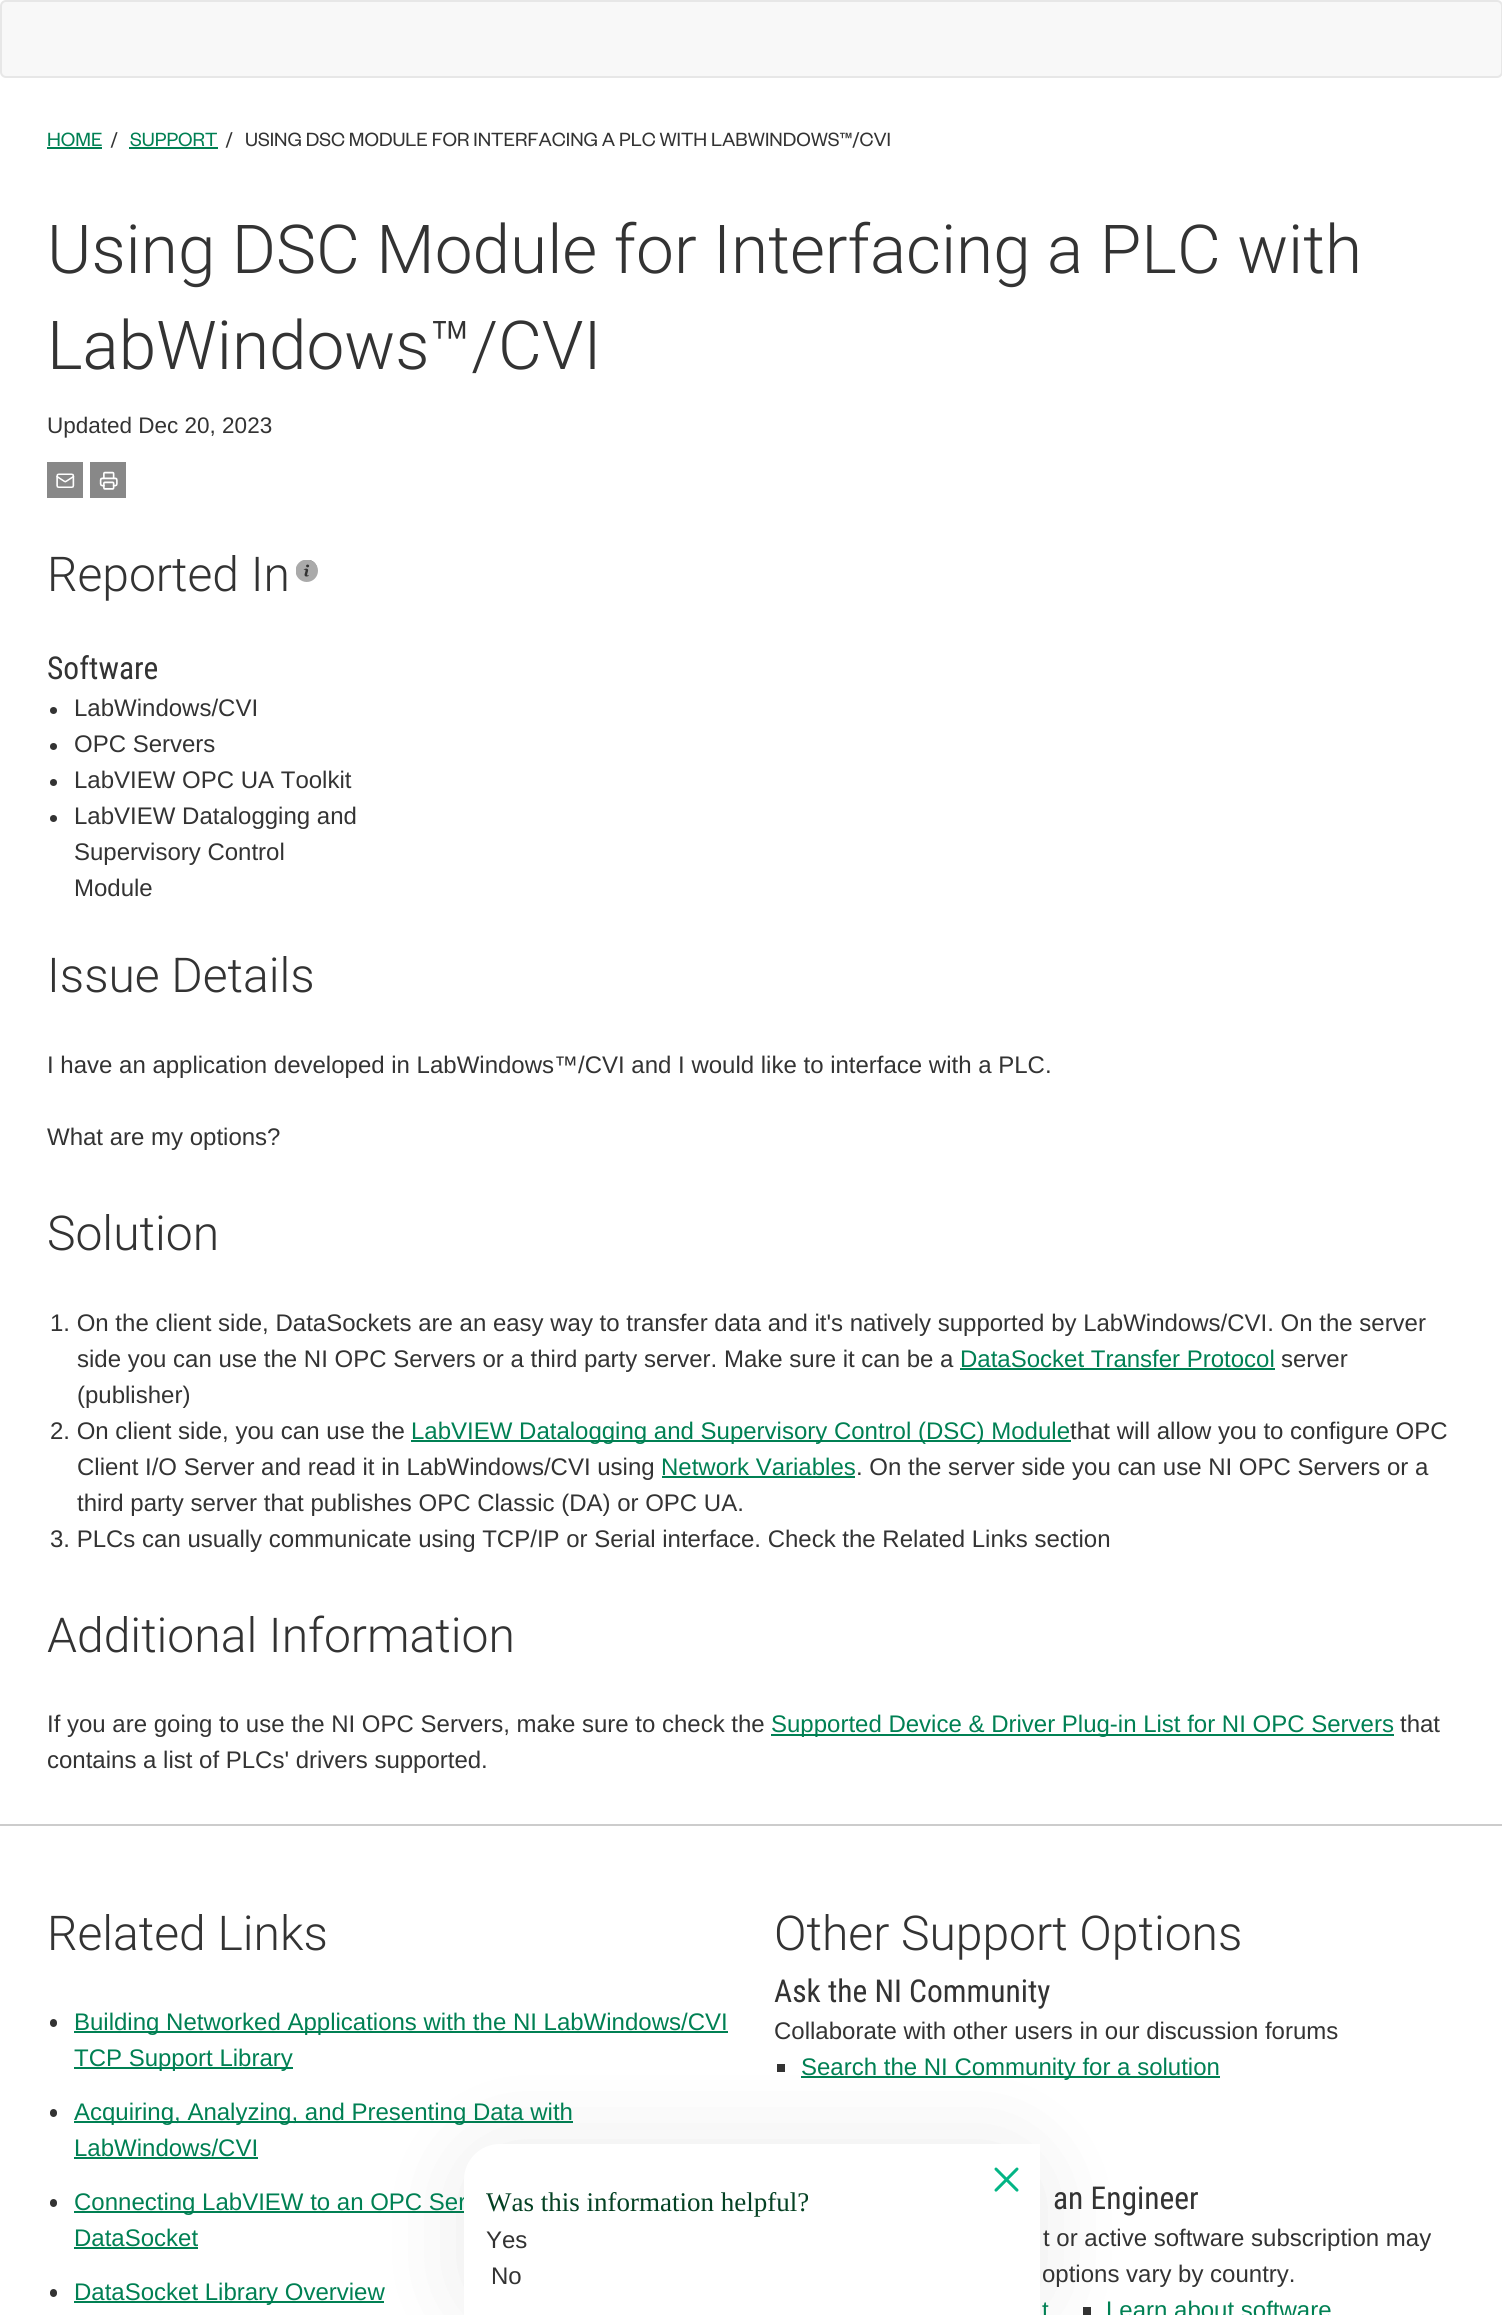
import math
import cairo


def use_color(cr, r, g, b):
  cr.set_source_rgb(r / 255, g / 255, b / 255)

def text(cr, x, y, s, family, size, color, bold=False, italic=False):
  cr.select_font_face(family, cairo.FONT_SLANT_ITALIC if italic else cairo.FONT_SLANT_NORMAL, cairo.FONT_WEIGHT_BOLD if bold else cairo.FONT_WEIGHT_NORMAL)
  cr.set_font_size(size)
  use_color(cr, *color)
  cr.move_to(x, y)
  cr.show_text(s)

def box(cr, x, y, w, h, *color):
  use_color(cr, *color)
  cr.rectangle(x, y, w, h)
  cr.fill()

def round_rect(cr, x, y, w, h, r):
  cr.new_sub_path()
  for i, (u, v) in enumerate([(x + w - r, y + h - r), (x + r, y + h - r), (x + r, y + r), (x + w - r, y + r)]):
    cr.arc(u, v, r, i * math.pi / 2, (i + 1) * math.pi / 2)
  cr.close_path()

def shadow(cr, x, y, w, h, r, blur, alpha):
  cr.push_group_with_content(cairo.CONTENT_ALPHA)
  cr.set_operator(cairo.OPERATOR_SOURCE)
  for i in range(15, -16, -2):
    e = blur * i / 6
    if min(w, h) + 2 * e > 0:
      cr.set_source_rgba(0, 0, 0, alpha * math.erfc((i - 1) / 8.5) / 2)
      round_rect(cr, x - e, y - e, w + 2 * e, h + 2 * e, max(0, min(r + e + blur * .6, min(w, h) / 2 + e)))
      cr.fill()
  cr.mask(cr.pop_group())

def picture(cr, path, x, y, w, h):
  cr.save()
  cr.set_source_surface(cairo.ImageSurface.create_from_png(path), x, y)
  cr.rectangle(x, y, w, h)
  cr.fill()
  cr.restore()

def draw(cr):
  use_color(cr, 255, 255, 255)
  cr.paint()
  use_color(cr, 248, 248, 248)
  round_rect(cr, 1, 1, 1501, 76, 5)
  cr.fill_preserve()
  use_color(cr, 231, 231, 231)
  cr.stroke()
  box(cr, 47, 147, 55, 2, 0, 128, 83)
  box(cr, 129, 147, 89, 2, 0, 128, 83)
  box(cr, 47, 462, 36, 36, 136, 136, 136)
  picture(cr, "img_01.png", 56, 473, 19, 15)
  box(cr, 90, 462, 36, 36, 136, 136, 136)
  picture(cr, "img_02.png", 99, 471, 19, 19)
  use_color(cr, 51, 51, 51)
  cr.arc(308, 569, 9, 0, 2 * math.pi)
  cr.fill()
  picture(cr, "img_03.png", 296, 560, 22, 22)
  cr.arc(53.5, 710.5, 3.5, 0, 2 * math.pi)
  cr.fill()
  cr.arc(53.5, 746.5, 3.5, 0, 2 * math.pi)
  cr.fill()
  cr.arc(53.5, 782.5, 3.5, 0, 2 * math.pi)
  cr.fill()
  cr.arc(53.5, 818.5, 3.5, 0, 2 * math.pi)
  cr.fill()
  box(cr, 960, 1368, 315, 2, 0, 128, 83)
  box(cr, 411, 1440, 660, 2, 0, 128, 83)
  box(cr, 662, 1476, 193, 2, 0, 128, 83)
  box(cr, 771, 1734, 623, 2, 0, 128, 83)
  box(cr, 0, 1824, 1502, 2, 204, 204, 204)
  use_color(cr, 51, 51, 51)
  round_rect(cr, 50, 2019, 7, 8, 3.5)
  cr.fill()
  box(cr, 74, 2031, 654, 2, 0, 128, 83)
  box(cr, 74, 2067, 219, 2, 0, 128, 83)
  use_color(cr, 51, 51, 51)
  round_rect(cr, 50, 2109, 7, 8, 3.5)
  cr.fill()
  box(cr, 74, 2121, 499, 2, 0, 128, 83)
  box(cr, 74, 2157, 184, 2, 0, 128, 83)
  use_color(cr, 51, 51, 51)
  round_rect(cr, 50, 2199, 7, 8, 3.5)
  cr.fill()
  box(cr, 74, 2211, 390, 2, 0, 128, 83)
  box(cr, 74, 2247, 124, 2, 0, 128, 83)
  use_color(cr, 51, 51, 51)
  round_rect(cr, 50, 2289, 7, 8, 3.5)
  cr.fill()
  box(cr, 74, 2301, 310, 2, 0, 128, 83)
  box(cr, 777, 2064, 8, 8, 51, 51, 51)
  box(cr, 801, 2076, 419, 2, 0, 128, 83)
  box(cr, 1083, 2307, 8, 8, 51, 51, 51)
  use_color(cr, 0, 0, 0)
  shadow(cr, 464, 2147, 576, 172, 36, 48, 0.08)
  text(cr, 47, 146, "HOME", "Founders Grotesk", 21, (0, 128, 83))
  text(cr, 111, 146, "/", "Founders Grotesk", 21, (51, 51, 51))
  text(cr, 130, 146, "SUPPORT", "Founders Grotesk", 21, (0, 128, 83))
  text(cr, 226, 146, "/", "Founders Grotesk", 21, (51, 51, 51))
  text(cr, 245, 146, "USING DSC MODULE FOR INTERFACING A PLC WITH LABWINDOWS™/CVI", "Founders Grotesk", 21, (51, 51, 51))
  text(cr, 47, 273, "Using DSC Module for Interfacing a PLC with", "Roboto Light", 67.5, (51, 51, 51))
  text(cr, 47, 369, "LabWindows™/CVI", "Roboto Light", 67.5, (51, 51, 51))
  text(cr, 47, 433, "Updated Dec 20, 2023", "Liberation Sans", 22.5, (51, 51, 51))
  text(cr, 47, 591, "Reported In", "Roboto Light", 48, (51, 51, 51))
  text(cr, 47, 679, "Software", "Roboto Condensed", 31.5, (51, 51, 51))
  text(cr, 74, 716, "LabWindows/CVI", "Liberation Sans", 24, (51, 51, 51))
  text(cr, 74, 752, "OPC Servers", "Liberation Sans", 24, (51, 51, 51))
  text(cr, 74, 788, "LabVIEW OPC UA Toolkit", "Liberation Sans", 24, (51, 51, 51))
  text(cr, 74, 824, "LabVIEW Datalogging and", "Liberation Sans", 24, (51, 51, 51))
  text(cr, 74, 860, "Supervisory Control", "Liberation Sans", 24, (51, 51, 51))
  text(cr, 74, 896, "Module", "Liberation Sans", 24, (51, 51, 51))
  text(cr, 47, 992, "Issue Details", "Roboto Light", 48, (51, 51, 51))
  text(cr, 47, 1073, "I have an application developed in LabWindows™/CVI and I would like to interface with a PLC.", "Liberation Sans", 24, (51, 51, 51))
  text(cr, 47, 1145, "What are my options?", "Liberation Sans", 24, (51, 51, 51))
  text(cr, 47, 1250, "Solution", "Roboto Light", 48, (51, 51, 51))
  text(cr, 50, 1331, "1. On the client side, DataSockets are an easy way to transfer data and it's natively supported by LabWindows/CVI. On the server", "Liberation Sans", 24, (51, 51, 51))
  text(cr, 77, 1367, "side you can use the NI OPC Servers or a third party server. Make sure it can be a", "Liberation Sans", 24, (51, 51, 51))
  text(cr, 960, 1367, "DataSocket Transfer Protocol", "Liberation Sans", 24, (0, 128, 83))
  text(cr, 1281, 1367, "server", "Liberation Sans", 24, (51, 51, 51))
  text(cr, 77, 1403, "(publisher)", "Liberation Sans", 24, (51, 51, 51))
  text(cr, 50, 1439, "2. On client side, you can use the", "Liberation Sans", 24, (51, 51, 51))
  text(cr, 411, 1439, "LabVIEW Datalogging and Supervisory Control (DSC) Module", "Liberation Sans", 24, (0, 128, 83))
  text(cr, 1070, 1439, "that will allow you to configure OPC", "Liberation Sans", 24, (51, 51, 51))
  text(cr, 77, 1475, "Client I/O Server and read it in LabWindows/CVI using", "Liberation Sans", 24, (51, 51, 51))
  text(cr, 661, 1475, "Network Variables", "Liberation Sans", 24, (0, 128, 83))
  text(cr, 856, 1475, ". On the server side you can use NI OPC Servers or a", "Liberation Sans", 24, (51, 51, 51))
  text(cr, 77, 1511, "third party server that publishes OPC Classic (DA) or OPC UA.", "Liberation Sans", 24, (51, 51, 51))
  text(cr, 50, 1547, "3. PLCs can usually communicate using TCP/IP or Serial interface. Check the Related Links section", "Liberation Sans", 24, (51, 51, 51))
  text(cr, 47, 1652, "Additional Information", "Roboto Light", 48, (51, 51, 51))
  text(cr, 47, 1732, "If you are going to use the NI OPC Servers, make sure to check the", "Liberation Sans", 24, (51, 51, 51))
  text(cr, 771, 1732, "Supported Device & Driver Plug-in List for NI OPC Servers", "Liberation Sans", 24, (0, 128, 83))
  text(cr, 1400, 1732, "that", "Liberation Sans", 24, (51, 51, 51))
  text(cr, 47, 1768, "contains a list of PLCs' drivers supported.", "Liberation Sans", 24, (51, 51, 51))
  text(cr, 47, 1950, "Related Links", "Roboto Light", 48, (51, 51, 51))
  text(cr, 74, 2030, "Building Networked Applications with the NI LabWindows/CVI", "Liberation Sans", 24, (0, 128, 83))
  text(cr, 74, 2066, "TCP Support Library", "Liberation Sans", 24, (0, 128, 83))
  text(cr, 74, 2120, "Acquiring, Analyzing, and Presenting Data with", "Liberation Sans", 24, (0, 128, 83))
  text(cr, 74, 2156, "LabWindows/CVI", "Liberation Sans", 24, (0, 128, 83))
  text(cr, 74, 2210, "Connecting LabVIEW to an OPC Ser", "Liberation Sans", 24, (0, 128, 83))
  text(cr, 74, 2246, "DataSocket", "Liberation Sans", 24, (0, 128, 83))
  text(cr, 74, 2300, "DataSocket Library Overview", "Liberation Sans", 24, (0, 128, 83))
  text(cr, 774, 1950, "Other Support Options", "Roboto Light", 48, (51, 51, 51))
  text(cr, 774, 2002, "Ask the NI Community", "Roboto Condensed", 31.5, (51, 51, 51))
  text(cr, 774, 2039, "Collaborate with other users in our discussion forums", "Liberation Sans", 24, (51, 51, 51))
  text(cr, 801, 2075, "Search the NI Community for a solution", "Liberation Sans", 24, (0, 128, 83))
  text(cr, 1053, 2209, "an Engineer", "Roboto Condensed", 31.5, (51, 51, 51))
  text(cr, 1043, 2246, "t or active software subscription may", "Liberation Sans", 24, (51, 51, 51))
  text(cr, 1042, 2282, "options vary by country.", "Liberation Sans", 24, (51, 51, 51))
  text(cr, 1042, 2318, "t", "Liberation Sans", 24, (0, 128, 83))
  text(cr, 1106, 2318, "Learn about software", "Liberation Sans", 24, (0, 128, 83))
  use_color(cr, 255, 255, 255)
  cr.new_path()
  cr.move_to(500, 2144)
  cr.line_to(1040, 2144)
  cr.line_to(1040, 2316)
  cr.line_to(464, 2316)
  cr.line_to(464, 2180)
  cr.curve_to(464, 2160, 480, 2144, 500, 2144)
  cr.close_path()
  cr.fill()
  picture(cr, "img_04.png", 994, 2167, 25, 25)
  text(cr, 486, 2211, "Was this information helpful?", "Liberation Serif", 27, (4, 65, 35))
  text(cr, 486, 2248, "Yes", "Liberation Sans", 24, (51, 51, 51))
  text(cr, 491, 2284, "No", "Liberation Sans", 24, (51, 51, 51))


surface = cairo.ImageSurface(cairo.FORMAT_RGB24, 1502, 2315)
cr = cairo.Context(surface)
options = cairo.FontOptions()
options.set_hint_metrics(cairo.HINT_METRICS_OFF)
options.set_hint_style(cairo.HINT_STYLE_NONE)
cr.set_font_options(options)
cr.set_miter_limit(4)
draw(cr)
surface.write_to_png("out.png")
